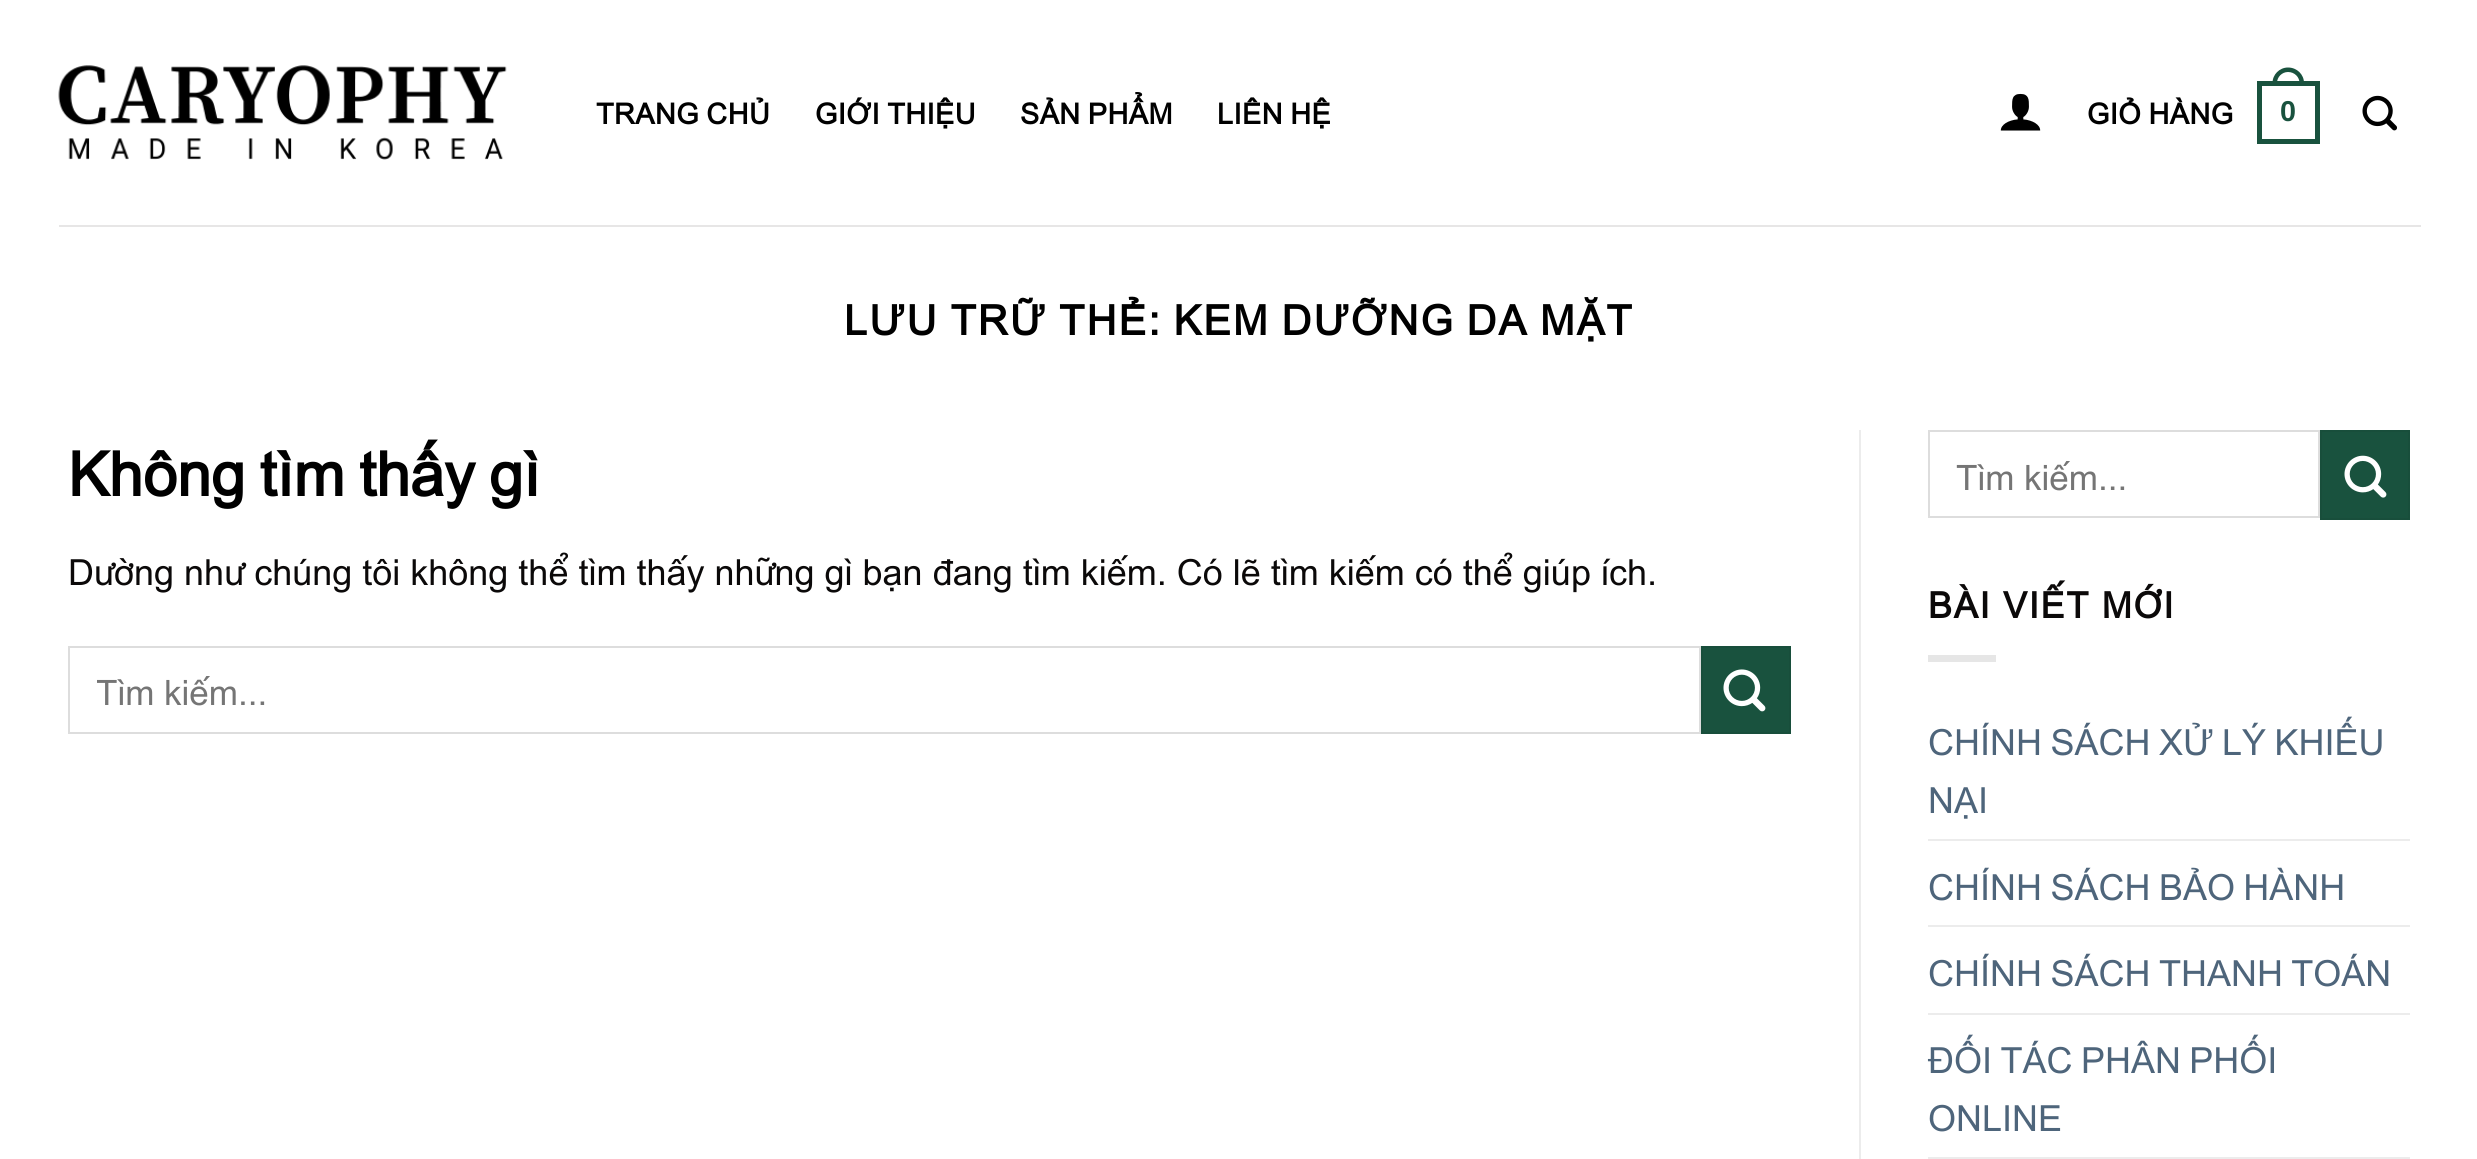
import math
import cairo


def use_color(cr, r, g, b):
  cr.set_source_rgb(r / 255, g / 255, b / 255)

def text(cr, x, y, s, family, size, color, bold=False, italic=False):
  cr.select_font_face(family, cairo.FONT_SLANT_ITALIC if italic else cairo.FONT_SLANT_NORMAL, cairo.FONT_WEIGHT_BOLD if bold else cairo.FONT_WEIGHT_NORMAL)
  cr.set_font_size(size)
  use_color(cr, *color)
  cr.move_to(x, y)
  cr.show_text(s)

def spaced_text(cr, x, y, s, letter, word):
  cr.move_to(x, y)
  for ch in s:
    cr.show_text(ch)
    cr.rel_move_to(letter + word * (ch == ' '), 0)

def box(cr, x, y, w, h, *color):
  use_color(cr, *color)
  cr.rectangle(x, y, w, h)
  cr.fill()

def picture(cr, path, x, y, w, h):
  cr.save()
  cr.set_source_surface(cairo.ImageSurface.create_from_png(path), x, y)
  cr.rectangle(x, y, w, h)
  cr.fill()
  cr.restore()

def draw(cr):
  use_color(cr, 255, 255, 255)
  cr.paint()
  picture(cr, "img_01.png", 58, 65, 449, 95)
  picture(cr, "img_02.png", 2000, 93, 41, 38)
  cr.rectangle(2259.5, 83.5, 58, 58)
  use_color(cr, 25, 82, 62)
  cr.set_line_width(5)
  cr.stroke()
  cr.set_fill_rule(cairo.FILL_RULE_EVEN_ODD)
  cr.new_path()
  cr.move_to(2288, 67.5)
  cr.curve_to(2297, 67.5, 2304, 74.5, 2304, 83)
  cr.line_to(2304, 85.5)
  cr.line_to(2272.5, 85.5)
  cr.line_to(2272.5, 83)
  cr.curve_to(2272.5, 74.5, 2279.5, 67.5, 2288, 67.5)
  cr.close_path()
  cr.move_to(2288, 72)
  cr.curve_to(2294.5, 72, 2299.5, 77, 2299.5, 83)
  cr.line_to(2299.5, 85.5)
  cr.line_to(2277, 85.5)
  cr.line_to(2277, 83)
  cr.curve_to(2277, 77, 2282, 72, 2288, 72)
  cr.close_path()
  cr.fill()
  picture(cr, "img_03.png", 2362, 95, 35, 36)
  box(cr, 59, 225, 2362, 2, 231, 230, 230)
  cr.rectangle(69, 647, 1631, 86)
  use_color(cr, 221, 221, 221)
  cr.set_line_width(2)
  cr.stroke()
  use_color(cr, 25, 82, 62)
  cr.rectangle(1702, 647, 88, 86)
  cr.fill_preserve()
  use_color(cr, 24, 78, 59)
  cr.stroke()
  picture(cr, "img_04.png", 1723, 669, 43, 43)
  box(cr, 1859, 430, 2, 729, 236, 236, 236)
  cr.rectangle(1929, 431, 390, 86)
  use_color(cr, 221, 221, 221)
  cr.stroke()
  use_color(cr, 25, 82, 62)
  cr.rectangle(2321, 431, 88, 88)
  cr.fill_preserve()
  use_color(cr, 24, 78, 59)
  cr.stroke()
  picture(cr, "img_05.png", 2344, 455, 43, 43)
  box(cr, 1928, 655, 68, 7, 230, 230, 230)
  box(cr, 1928, 839, 482, 2, 236, 236, 236)
  box(cr, 1928, 925, 482, 2, 236, 236, 236)
  box(cr, 1928, 1013, 482, 2, 236, 236, 236)
  box(cr, 1928, 1157, 482, 2, 236, 236, 236)
  cr.select_font_face("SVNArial", cairo.FONT_SLANT_NORMAL, cairo.FONT_WEIGHT_BOLD)
  cr.set_font_size(28.75)
  use_color(cr, 0, 0, 0)
  spaced_text(cr, 596, 124, "TRANG CHỦ", 0.5, 0)
  spaced_text(cr, 815, 124, "GIỚI THIỆU", 0.5, 0)
  spaced_text(cr, 1020, 124, "SẢN PHẨM", 0.5, 0)
  spaced_text(cr, 1217, 124, "LIÊN HỆ", 0.5, 0)
  spaced_text(cr, 2087, 124, "GIỎ HÀNG", 0.5, 0)
  cr.select_font_face("Liberation Sans", cairo.FONT_SLANT_NORMAL, cairo.FONT_WEIGHT_BOLD)
  use_color(cr, 25, 82, 62)
  spaced_text(cr, 2280, 121, "0", 0.5, 0)
  cr.select_font_face("SVNArial", cairo.FONT_SLANT_NORMAL, cairo.FONT_WEIGHT_BOLD)
  cr.set_font_size(41.4)
  use_color(cr, 0, 0, 0)
  spaced_text(cr, 844, 335, "LƯU TRỮ THẺ: KEM DƯỠNG DA MẶT", 2.1, 0)
  text(cr, 68, 496, "Không tìm thấy gì", "SVNArial", 61.25, (0, 0, 0), bold=True)
  text(cr, 68, 585, "Dường như chúng tôi không thể tìm thấy những gì bạn đang tìm kiếm. Có lẽ tìm kiếm có thể giúp ích.", "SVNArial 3", 36, (11, 9, 9))
  cr.save()
  cr.set_fill_rule(cairo.FILL_RULE_WINDING)
  cr.rectangle(97, 666, 1566, 45)
  cr.clip()
  text(cr, 96, 705, "Tìm kiếm…", "SVNArial 3", 35, (117, 117, 117))
  cr.restore()
  text(cr, 1956, 490, "Tìm kiếm…", "SVNArial 3", 35, (117, 117, 117))
  cr.select_font_face("SVNArial 3", cairo.FONT_SLANT_NORMAL, cairo.FONT_WEIGHT_BOLD)
  cr.set_font_size(36)
  use_color(cr, 11, 9, 9)
  spaced_text(cr, 1928, 618, "BÀI VIẾT MỚI", 1.75, 0)
  text(cr, 1928, 755, "CHÍNH SÁCH XỬ LÝ KHIẾU", "SVNArial", 36, (78, 101, 123))
  text(cr, 1928, 813, "NẠI", "SVNArial", 36, (78, 101, 123))
  text(cr, 1928, 900, "CHÍNH SÁCH BẢO HÀNH", "SVNArial", 36, (78, 101, 123))
  text(cr, 1928, 986, "CHÍNH SÁCH THANH TOÁN", "SVNArial", 36, (78, 101, 123))
  text(cr, 1928, 1073, "ĐỐI TÁC PHÂN PHỐI", "SVNArial", 36, (78, 101, 123))
  text(cr, 1928, 1131, "ONLINE", "SVNArial", 36, (78, 101, 123))


surface = cairo.ImageSurface(cairo.FORMAT_RGB24, 2477, 1159)
cr = cairo.Context(surface)
options = cairo.FontOptions()
options.set_hint_metrics(cairo.HINT_METRICS_OFF)
options.set_hint_style(cairo.HINT_STYLE_NONE)
cr.set_font_options(options)
cr.set_miter_limit(4)
draw(cr)
surface.write_to_png("out.png")
